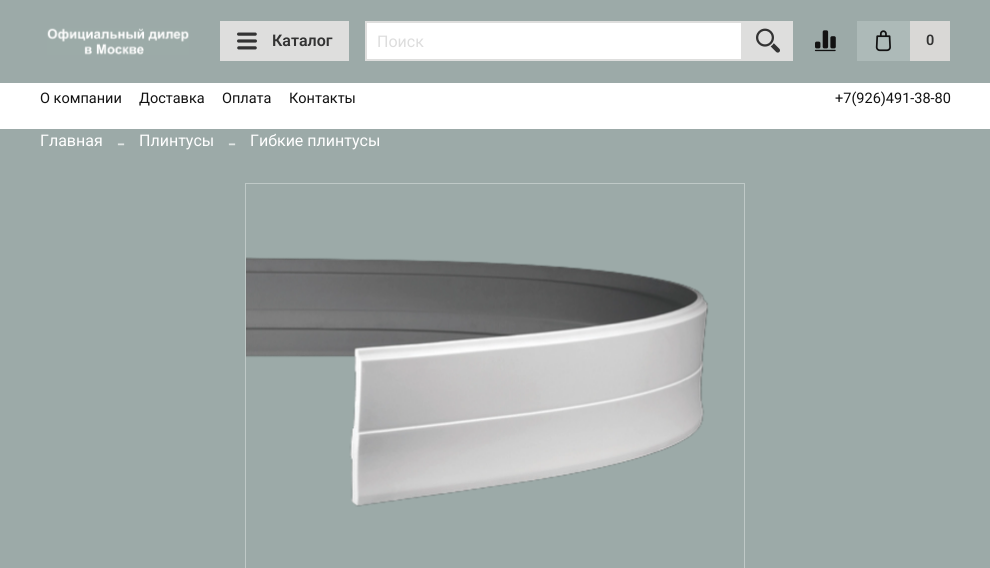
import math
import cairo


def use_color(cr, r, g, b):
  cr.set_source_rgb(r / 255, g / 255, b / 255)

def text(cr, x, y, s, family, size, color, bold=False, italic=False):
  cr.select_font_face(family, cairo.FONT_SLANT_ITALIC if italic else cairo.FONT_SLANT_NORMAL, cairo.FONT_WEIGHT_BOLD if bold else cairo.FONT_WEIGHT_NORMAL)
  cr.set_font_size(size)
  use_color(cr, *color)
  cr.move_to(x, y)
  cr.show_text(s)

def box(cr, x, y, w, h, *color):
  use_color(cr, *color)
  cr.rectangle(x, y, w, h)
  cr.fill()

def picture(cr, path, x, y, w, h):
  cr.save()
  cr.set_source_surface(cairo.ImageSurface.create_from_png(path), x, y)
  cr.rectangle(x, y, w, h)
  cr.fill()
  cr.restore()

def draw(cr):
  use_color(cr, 255, 255, 255)
  cr.paint()
  box(cr, 0, 0, 990, 83, 156, 170, 168)
  picture(cr, "img_01.png", 47, 28, 142, 27)
  box(cr, 220, 21, 129, 40, 222, 222, 221)
  picture(cr, "img_02.png", 237, 32, 20, 18)
  use_color(cr, 255, 255, 255)
  cr.rectangle(366, 22, 376, 38)
  cr.fill_preserve()
  use_color(cr, 222, 222, 221)
  cr.stroke()
  box(cr, 743, 21, 50, 40, 222, 222, 221)
  picture(cr, "img_03.png", 756, 28, 24, 25)
  picture(cr, "img_04.png", 814, 30, 22, 22)
  box(cr, 857, 21, 53, 40, 173, 186, 184)
  picture(cr, "img_05.png", 875, 30, 16, 22)
  box(cr, 910, 21, 40, 40, 217, 216, 214)
  box(cr, 0, 129, 990, 439, 156, 170, 168)
  cr.rectangle(245.5, 183.5, 499, 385)
  use_color(cr, 191, 201, 199)
  cr.set_line_width(1)
  cr.stroke()
  picture(cr, "img_06.png", 246, 257, 463, 250)
  text(cr, 272, 46, "Каталог", "Roboto SemiBold", 16, (51, 51, 51))
  text(cr, 377, 47, "Поиск", "Roboto", 16, (221, 221, 221))
  text(cr, 926, 45, "0", "Roboto SemiBold", 14.5, (51, 51, 51))
  text(cr, 40, 103, "О компании", "Roboto", 14.5, (18, 18, 18))
  text(cr, 139, 103, "Доставка", "Roboto", 14.5, (18, 18, 18))
  text(cr, 222, 103, "Оплата", "Roboto", 14.5, (18, 18, 18))
  text(cr, 289, 103, "Контакты", "Roboto", 14.5, (18, 18, 18))
  text(cr, 835, 103, "+7(926)491-38-80", "Roboto", 14.5, (18, 18, 18))
  text(cr, 40, 146, "Главная", "Roboto", 16, (255, 255, 255))
  text(cr, 117, 150, "-", "Liberation Serif", 24, (225, 230, 229))
  text(cr, 139, 146, "Плинтусы", "Roboto", 16, (255, 255, 255))
  text(cr, 228, 150, "-", "Liberation Serif", 24, (225, 230, 229))
  text(cr, 250, 146, "Гибкие плинтусы", "Roboto", 16, (255, 255, 255))


surface = cairo.ImageSurface(cairo.FORMAT_RGB24, 990, 568)
cr = cairo.Context(surface)
options = cairo.FontOptions()
options.set_hint_metrics(cairo.HINT_METRICS_OFF)
options.set_hint_style(cairo.HINT_STYLE_NONE)
cr.set_font_options(options)
cr.set_miter_limit(4)
draw(cr)
surface.write_to_png("out.png")
